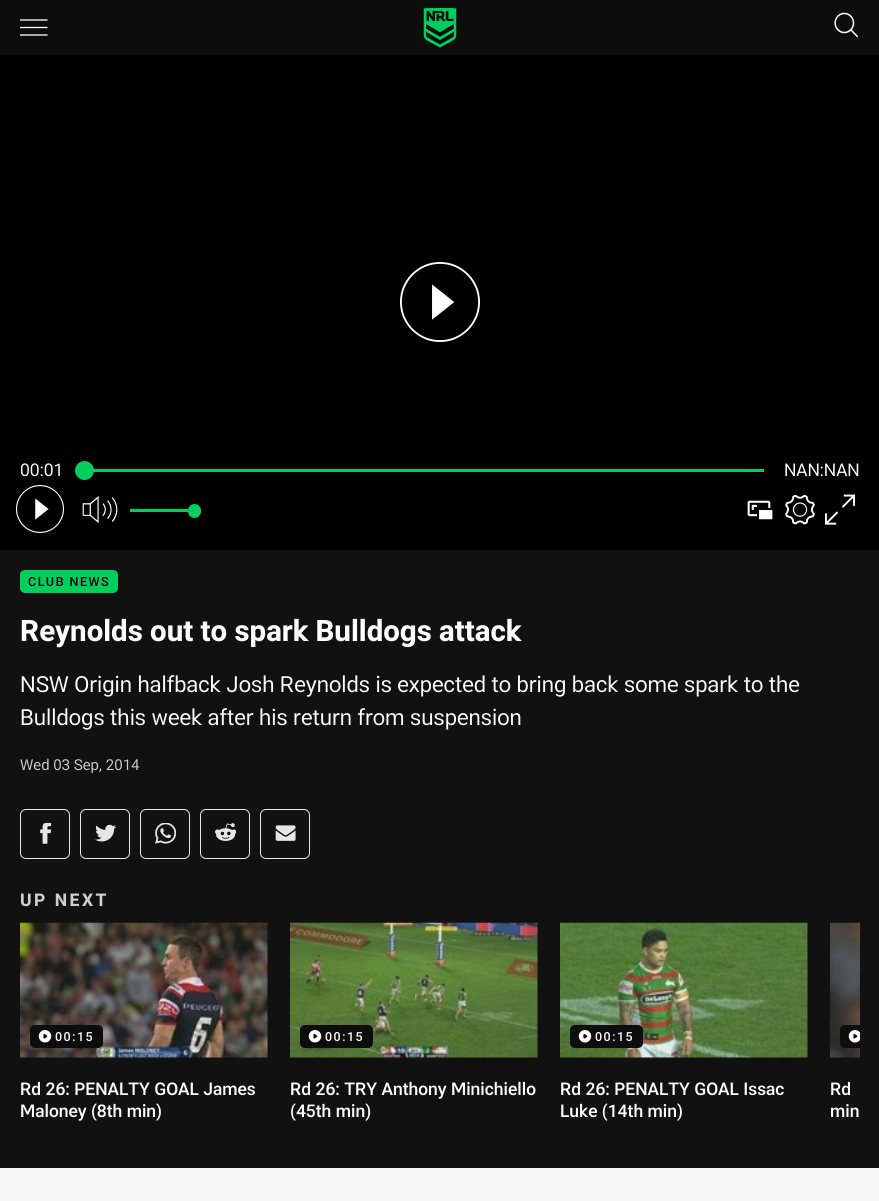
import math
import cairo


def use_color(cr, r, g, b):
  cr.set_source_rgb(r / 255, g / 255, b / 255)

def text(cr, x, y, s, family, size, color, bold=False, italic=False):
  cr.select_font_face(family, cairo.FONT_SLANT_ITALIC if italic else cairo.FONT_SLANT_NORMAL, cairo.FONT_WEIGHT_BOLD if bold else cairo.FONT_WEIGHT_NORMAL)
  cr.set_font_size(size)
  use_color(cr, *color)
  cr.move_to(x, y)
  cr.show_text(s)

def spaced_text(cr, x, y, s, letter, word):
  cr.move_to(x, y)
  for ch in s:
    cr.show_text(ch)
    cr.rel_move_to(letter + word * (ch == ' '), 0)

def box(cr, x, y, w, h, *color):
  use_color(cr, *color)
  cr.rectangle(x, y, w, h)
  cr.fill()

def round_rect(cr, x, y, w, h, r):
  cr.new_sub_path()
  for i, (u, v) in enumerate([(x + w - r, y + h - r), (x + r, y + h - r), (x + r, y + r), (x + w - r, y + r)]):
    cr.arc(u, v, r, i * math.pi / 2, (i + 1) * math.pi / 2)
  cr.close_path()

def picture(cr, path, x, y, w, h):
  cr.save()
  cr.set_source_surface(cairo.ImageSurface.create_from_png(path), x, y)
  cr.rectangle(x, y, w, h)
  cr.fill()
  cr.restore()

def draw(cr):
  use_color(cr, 246, 246, 246)
  cr.paint()
  box(cr, 0, 0, 879, 55, 13, 13, 13)
  picture(cr, "img_01.png", 20, 19, 28, 17)
  picture(cr, "img_02.png", 423, 8, 34, 40)
  picture(cr, "img_03.png", 834, 12, 25, 26)
  box(cr, 0, 550, 879, 618, 17, 17, 17)
  box(cr, 0, 55, 879, 495, 0, 0, 0)
  box(cr, 93, 469, 671, 3, 0, 207, 93)
  cr.arc(84.5, 470.5, 9.5, 0, 2 * math.pi)
  cr.fill()
  picture(cr, "img_04.png", 82, 496, 36, 27)
  box(cr, 130, 509, 64, 3, 0, 207, 93)
  round_rect(cr, 188, 504, 13, 14, 6.5)
  cr.fill()
  picture(cr, "img_05.png", 747, 500, 26, 20)
  picture(cr, "img_06.png", 785, 494, 30, 31)
  picture(cr, "img_07.png", 825, 494, 30, 31)
  round_rect(cr, 20, 570, 98, 23, 5)
  cr.fill()
  round_rect(cr, 20.5, 809.5, 49, 49, 5.5)
  use_color(cr, 230, 230, 230)
  cr.set_line_width(1)
  cr.stroke()
  picture(cr, "img_08.png", 40, 823, 12, 21)
  round_rect(cr, 80.5, 809.5, 49, 49, 5.5)
  cr.stroke()
  picture(cr, "img_09.png", 95, 824, 21, 18)
  round_rect(cr, 140.5, 809.5, 49, 49, 5.5)
  cr.stroke()
  picture(cr, "img_10.png", 155, 823, 21, 21)
  round_rect(cr, 200.5, 809.5, 49, 49, 5.5)
  cr.stroke()
  picture(cr, "img_11.png", 215, 823, 21, 18)
  round_rect(cr, 260.5, 809.5, 49, 49, 5.5)
  cr.stroke()
  picture(cr, "img_12.png", 275, 825, 21, 16)
  picture(cr, "img_13.png", 20, 922, 248, 136)
  use_color(cr, 13, 13, 13)
  round_rect(cr, 30, 1025, 73, 23, 5)
  cr.fill()
  picture(cr, "img_14.png", 38, 1030, 14, 13)
  picture(cr, "img_15.png", 290, 922, 248, 136)
  round_rect(cr, 300, 1025, 73, 23, 5)
  cr.fill()
  picture(cr, "img_14.png", 308, 1030, 14, 13)
  picture(cr, "img_16.png", 560, 922, 248, 136)
  round_rect(cr, 570, 1025, 73, 23, 5)
  cr.fill()
  picture(cr, "img_14.png", 578, 1030, 14, 13)
  picture(cr, "img_17.png", 830, 922, 30, 136)
  cr.new_path()
  cr.move_to(845, 1025)
  cr.line_to(860, 1025)
  cr.line_to(860, 1048)
  cr.line_to(845, 1048)
  cr.curve_to(842, 1048, 840, 1046, 840, 1043)
  cr.line_to(840, 1030)
  cr.curve_to(840, 1027, 842, 1025, 845, 1025)
  cr.close_path()
  cr.fill()
  picture(cr, "img_18.png", 848, 1030, 12, 13)
  text(cr, 400, 337, ">", "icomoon", 80, (255, 255, 255))
  text(cr, 20, 476, "00:01", "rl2", 17.5, (255, 255, 255))
  text(cr, 784, 476, "NAN:NAN", "rl2", 17.5, (255, 255, 255))
  text(cr, 16, 530, ">", "icomoon", 48, (255, 255, 255))
  cr.select_font_face("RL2 Medium")
  cr.set_font_size(12.5)
  use_color(cr, 0, 0, 0)
  spaced_text(cr, 28, 586, "CLUB NEWS", 1.5, 0)
  text(cr, 20, 641, "Reynolds out to spark Bulldogs attack", "RL2", 29.5, (255, 255, 255), bold=True)
  text(cr, 20, 692, "NSW Origin halfback Josh Reynolds is expected to bring back some spark to the", "rl2", 22.15, (255, 255, 255))
  text(cr, 20, 725, "Bulldogs this week after his return from suspension", "rl2", 22.15, (255, 255, 255))
  text(cr, 20, 770, "Wed 03 Sep, 2014", "rl2", 15, (207, 207, 207))
  cr.select_font_face("RL2", cairo.FONT_SLANT_NORMAL, cairo.FONT_WEIGHT_BOLD)
  cr.set_font_size(17.5)
  spaced_text(cr, 20, 906, "UP NEXT", 2.5, 0)
  cr.select_font_face("RL2 Medium")
  cr.set_font_size(12.5)
  use_color(cr, 255, 255, 255)
  spaced_text(cr, 55, 1041, "00:15", 1.5, 0)
  text(cr, 20, 1095, "Rd 26: PENALTY GOAL James", "RL2 Medium", 17.5, (255, 255, 255))
  text(cr, 20, 1117, "Maloney (8th min)", "RL2 Medium", 17.5, (255, 255, 255))
  cr.set_font_size(12.5)
  spaced_text(cr, 325, 1041, "00:15", 1.5, 0)
  text(cr, 290, 1095, "Rd 26: TRY Anthony Minichiello", "RL2 Medium", 17.5, (255, 255, 255))
  text(cr, 290, 1117, "(45th min)", "RL2 Medium", 17.5, (255, 255, 255))
  cr.set_font_size(12.5)
  spaced_text(cr, 595, 1041, "00:15", 1.5, 0)
  text(cr, 560, 1095, "Rd 26: PENALTY GOAL Issac", "RL2 Medium", 17.5, (255, 255, 255))
  text(cr, 560, 1117, "Luke (14th min)", "RL2 Medium", 17.5, (255, 255, 255))
  text(cr, 830, 1095, "Rd", "RL2 Medium", 17.5, (255, 255, 255))
  text(cr, 830, 1117, "min", "RL2 Medium", 17.5, (255, 255, 255))


surface = cairo.ImageSurface(cairo.FORMAT_RGB24, 879, 1201)
cr = cairo.Context(surface)
options = cairo.FontOptions()
options.set_hint_metrics(cairo.HINT_METRICS_OFF)
options.set_hint_style(cairo.HINT_STYLE_NONE)
cr.set_font_options(options)
cr.set_miter_limit(4)
draw(cr)
surface.write_to_png("out.png")
